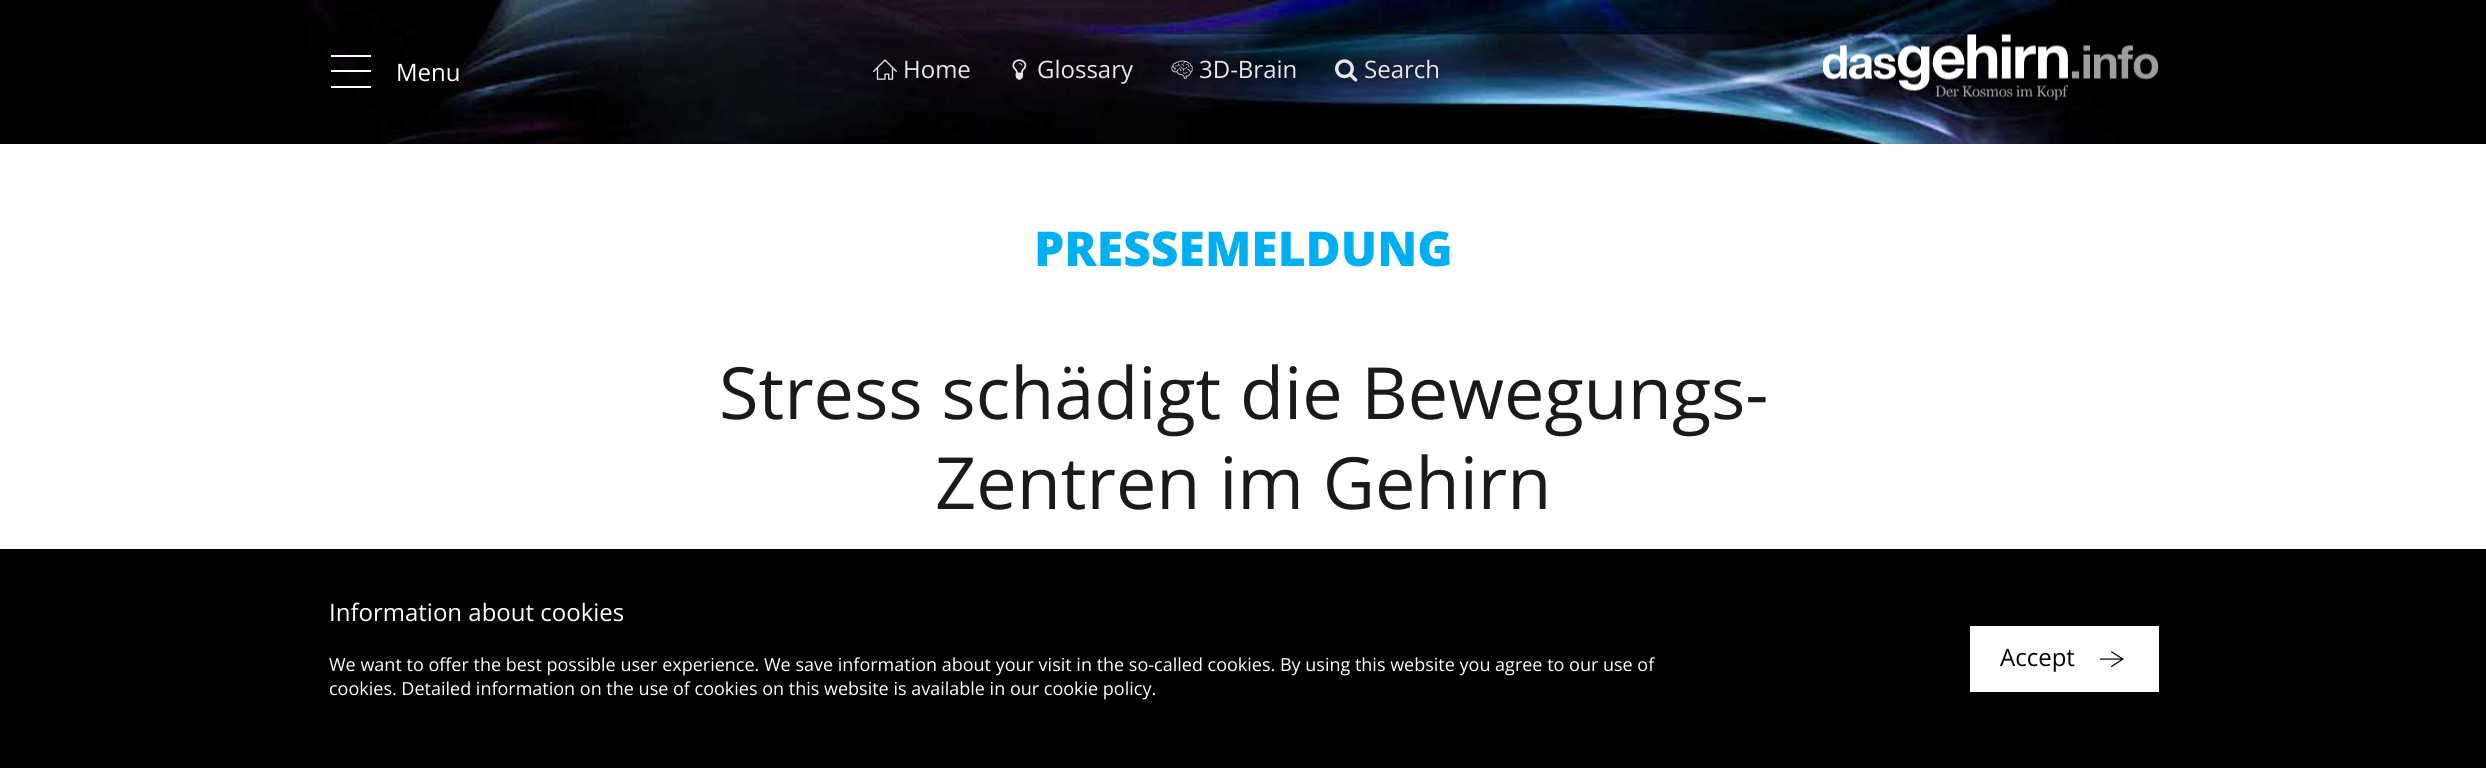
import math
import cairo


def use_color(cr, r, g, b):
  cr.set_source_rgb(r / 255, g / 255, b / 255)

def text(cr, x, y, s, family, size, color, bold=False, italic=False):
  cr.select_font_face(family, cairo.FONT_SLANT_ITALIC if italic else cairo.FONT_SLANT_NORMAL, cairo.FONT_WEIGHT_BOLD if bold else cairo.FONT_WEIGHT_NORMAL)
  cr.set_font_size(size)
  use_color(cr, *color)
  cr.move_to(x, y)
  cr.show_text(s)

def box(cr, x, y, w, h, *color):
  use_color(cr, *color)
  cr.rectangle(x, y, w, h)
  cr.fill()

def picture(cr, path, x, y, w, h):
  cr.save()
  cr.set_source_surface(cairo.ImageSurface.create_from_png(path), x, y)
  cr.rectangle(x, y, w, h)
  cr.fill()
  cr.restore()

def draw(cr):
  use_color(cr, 255, 255, 255)
  cr.paint()
  box(cr, 0, 0, 2486, 144, 0, 0, 0)
  picture(cr, "img_01.png", 309, 0, 1806, 144)
  use_color(cr, 255, 255, 255)
  cr.new_path()
  cr.move_to(371, 86)
  cr.line_to(331, 86)
  cr.line_to(331, 88)
  cr.line_to(371, 88)
  cr.close_path()
  cr.move_to(371, 55)
  cr.line_to(331, 55)
  cr.line_to(331, 57)
  cr.line_to(371, 57)
  cr.close_path()
  cr.move_to(371, 70)
  cr.line_to(331, 70)
  cr.line_to(331, 72)
  cr.line_to(371, 72)
  cr.close_path()
  cr.fill()
  picture(cr, "img_02.png", 873, 59, 24, 21)
  picture(cr, "img_03.png", 1012, 59, 15, 21)
  picture(cr, "img_04.png", 1171, 60, 22, 19)
  picture(cr, "img_05.png", 1335, 59, 23, 23)
  picture(cr, "img_06.png", 1823, 34, 336, 67)
  box(cr, 0, 549, 2486, 219, 0, 0, 0)
  box(cr, 1970, 626, 189, 66, 255, 255, 255)
  picture(cr, "img_07.png", 2100, 651, 24, 17)
  text(cr, 396, 81, "Menu", "Open Sans", 24, (255, 255, 255))
  text(cr, 903, 78, "Home", "Open Sans", 24, (231, 231, 231))
  text(cr, 1037, 78, "Glossary", "Open Sans", 24, (231, 231, 231))
  text(cr, 1199, 78, "3D-Brain", "Open Sans", 24, (231, 231, 231))
  text(cr, 1364, 78, "Search", "Open Sans", 24, (231, 231, 231))
  text(cr, 1034, 266, "PRESSEMELDUNG", "Open Sans ExtraBold", 48, (0, 175, 240))
  text(cr, 719, 419, "Stress schädigt die Bewegungs-", "Open Sans", 72, (26, 26, 26))
  text(cr, 935, 509, "Zentren im Gehirn", "Open Sans", 72, (26, 26, 26))
  text(cr, 329, 621, "Information about cookies", "Open Sans", 24, (255, 255, 255))
  text(cr, 329, 671, "We want to offer the best possible user experience. We save information about your visit in the so-called cookies. By using this website you agree to our use of", "Open Sans", 18, (255, 255, 255))
  text(cr, 329, 695, "cookies. Detailed information on the use of cookies on this website is available in our cookie policy.", "Open Sans", 18, (255, 255, 255))
  text(cr, 2000, 666, "Accept", "Open Sans", 24, (0, 0, 0))


surface = cairo.ImageSurface(cairo.FORMAT_RGB24, 2486, 768)
cr = cairo.Context(surface)
options = cairo.FontOptions()
options.set_hint_metrics(cairo.HINT_METRICS_OFF)
options.set_hint_style(cairo.HINT_STYLE_NONE)
cr.set_font_options(options)
cr.set_miter_limit(4)
draw(cr)
surface.write_to_png("out.png")
